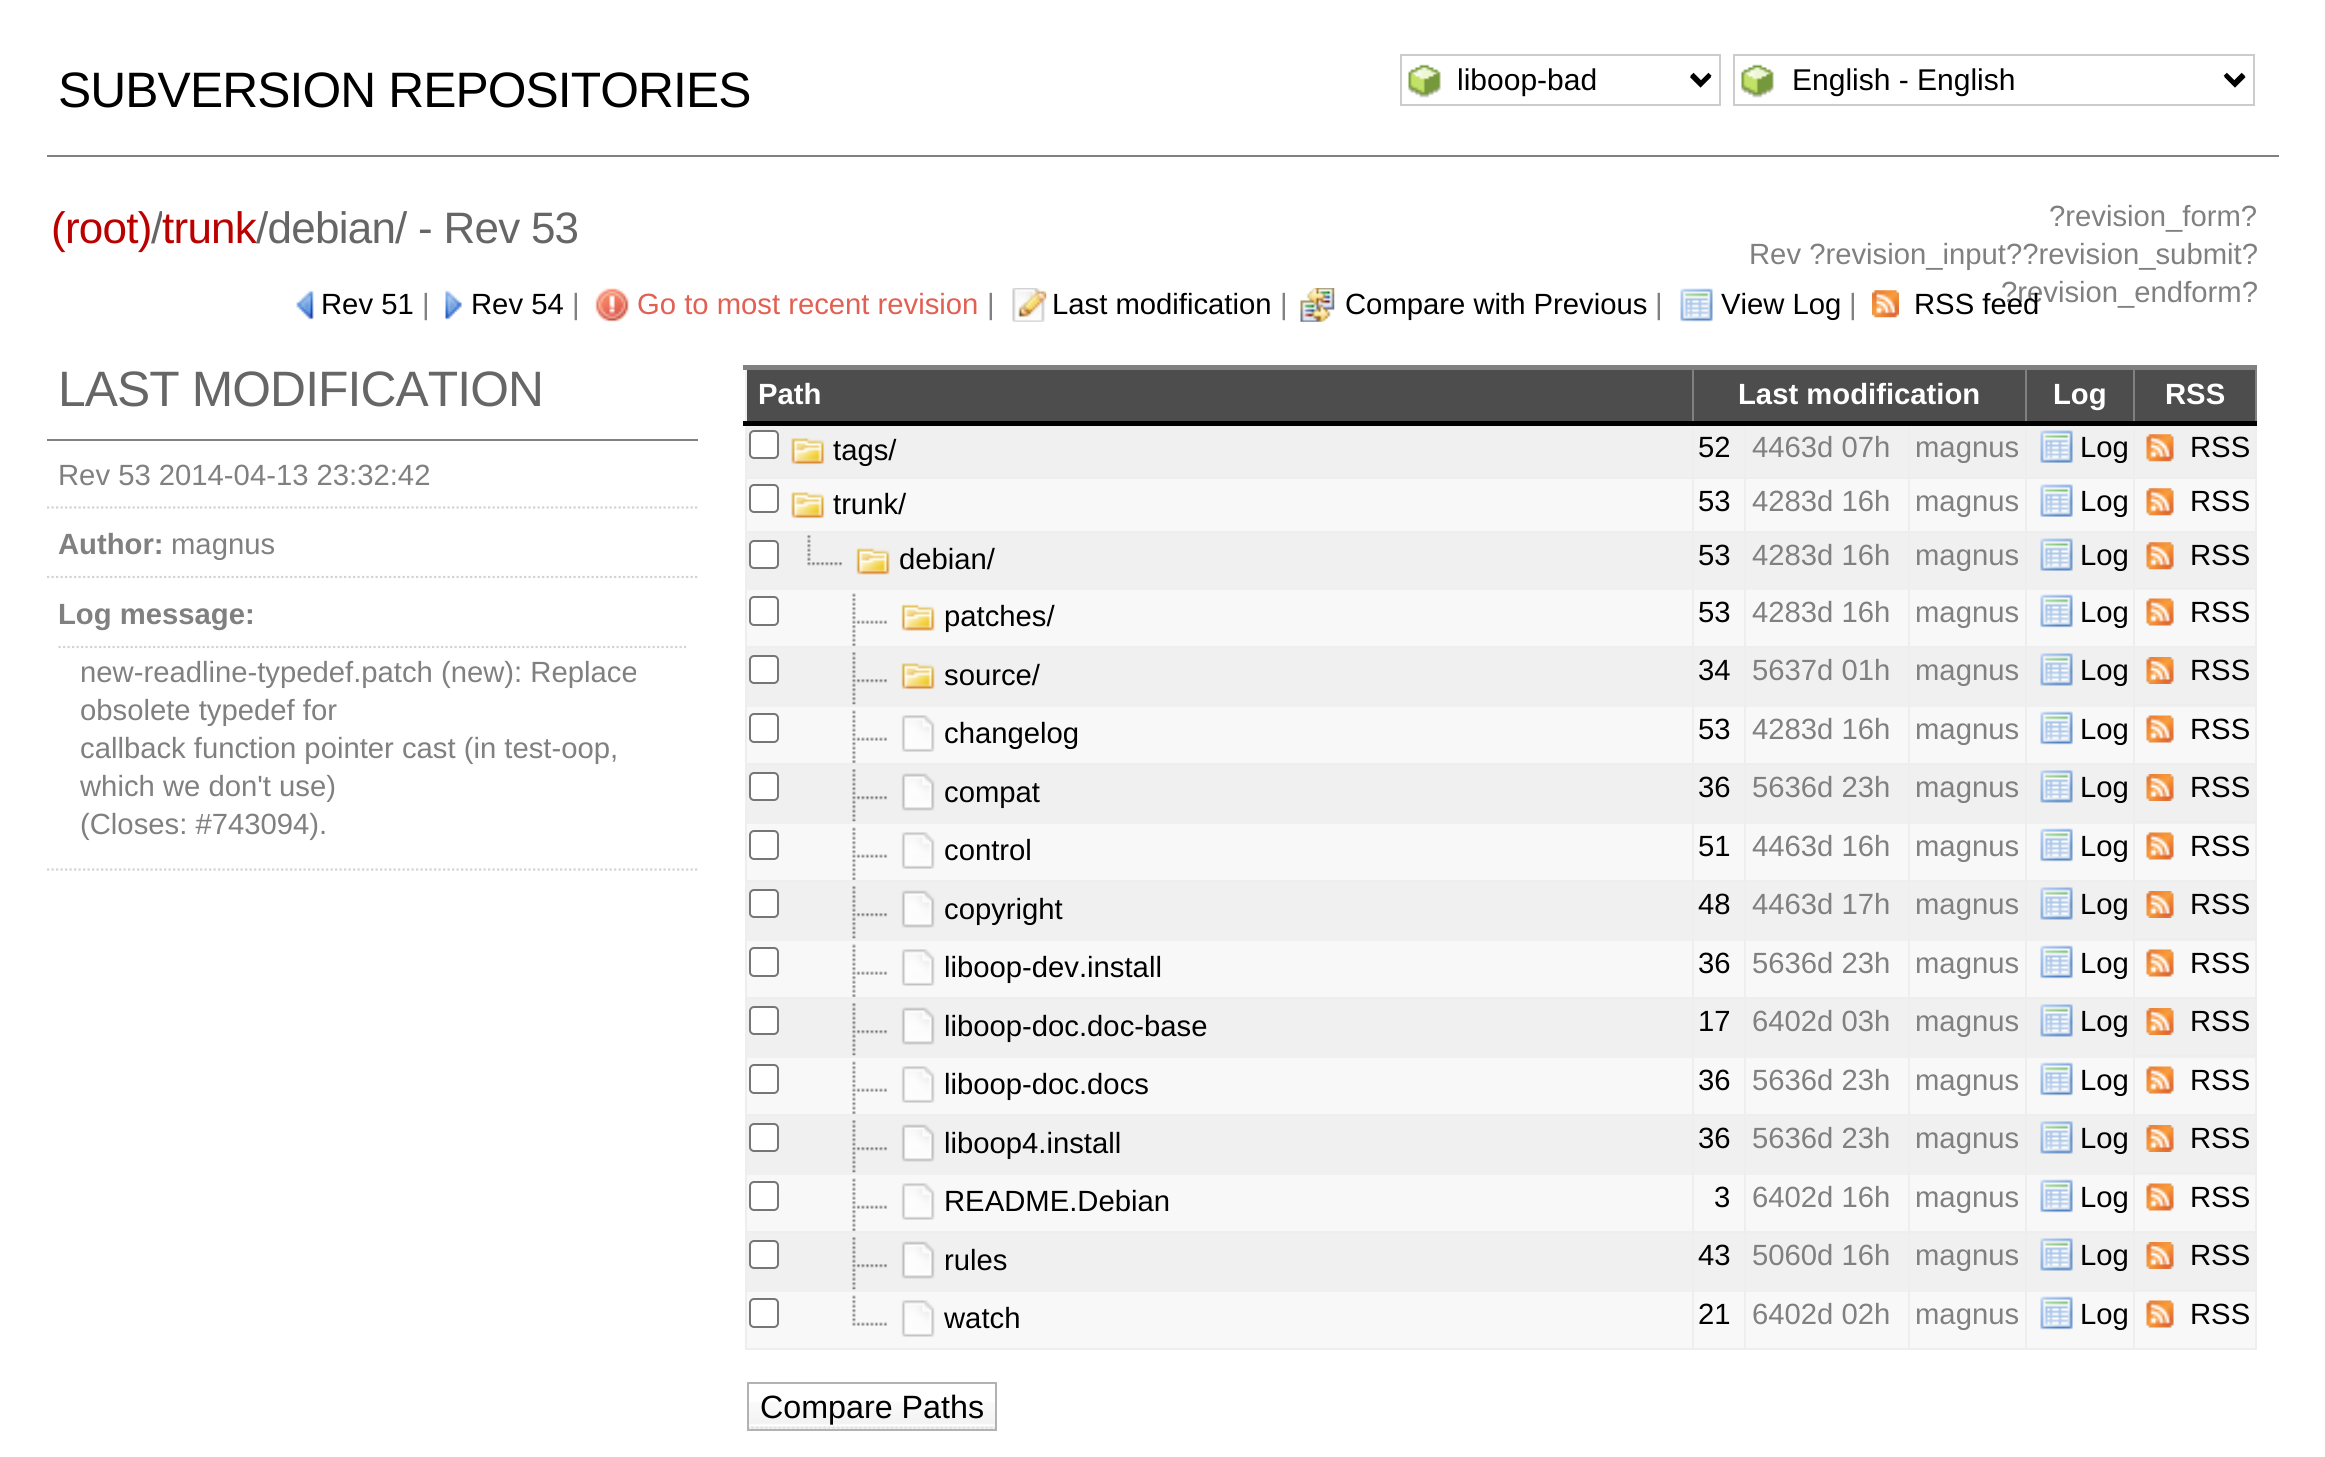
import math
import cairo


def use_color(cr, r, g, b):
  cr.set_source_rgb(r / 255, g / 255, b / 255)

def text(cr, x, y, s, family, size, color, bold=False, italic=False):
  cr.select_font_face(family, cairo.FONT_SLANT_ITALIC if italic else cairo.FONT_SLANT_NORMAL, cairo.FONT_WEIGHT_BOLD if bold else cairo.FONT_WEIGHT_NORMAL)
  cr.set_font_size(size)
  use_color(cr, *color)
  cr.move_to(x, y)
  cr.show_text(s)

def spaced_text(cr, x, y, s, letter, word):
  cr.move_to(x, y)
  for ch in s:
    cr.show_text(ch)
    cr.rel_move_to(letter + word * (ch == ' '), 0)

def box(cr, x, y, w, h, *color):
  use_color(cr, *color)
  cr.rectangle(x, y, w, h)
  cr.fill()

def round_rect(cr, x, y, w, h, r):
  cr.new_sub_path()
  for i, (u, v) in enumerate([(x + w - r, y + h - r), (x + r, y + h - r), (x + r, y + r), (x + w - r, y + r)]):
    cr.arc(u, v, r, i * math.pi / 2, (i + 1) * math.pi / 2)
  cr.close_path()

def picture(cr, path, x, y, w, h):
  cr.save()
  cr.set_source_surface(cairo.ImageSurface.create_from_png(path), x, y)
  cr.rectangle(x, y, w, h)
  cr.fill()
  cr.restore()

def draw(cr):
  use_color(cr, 255, 255, 255)
  cr.paint()
  box(cr, 47, 155, 2232, 2, 128, 128, 128)
  picture(cr, "img_01.png", 1408, 64, 304, 34)
  cr.rectangle(1401, 55, 319, 50)
  use_color(cr, 204, 204, 204)
  cr.stroke()
  cr.new_path()
  cr.move_to(1691.5, 75.5)
  cr.line_to(1700.5, 84.5)
  cr.line_to(1709.5, 75.5)
  use_color(cr, 0, 0, 0)
  cr.set_line_width(4.5)
  cr.stroke()
  picture(cr, "img_02.png", 1741, 64, 504, 34)
  cr.rectangle(1734, 55, 520, 50)
  use_color(cr, 204, 204, 204)
  cr.set_line_width(2)
  cr.stroke()
  cr.new_path()
  cr.move_to(2226, 75.5)
  cr.line_to(2235, 84.5)
  cr.line_to(2244, 75.5)
  use_color(cr, 0, 0, 0)
  cr.set_line_width(4.5)
  cr.stroke()
  picture(cr, "img_03.png", 296, 290, 18, 30)
  picture(cr, "img_04.png", 445, 290, 17, 30)
  picture(cr, "img_05.png", 595, 288, 34, 34)
  picture(cr, "img_06.png", 1012, 288, 35, 34)
  picture(cr, "img_07.png", 1300, 288, 35, 34)
  picture(cr, "img_08.png", 1680, 288, 33, 34)
  picture(cr, "img_09.png", 1872, 290, 27, 28)
  box(cr, 47, 439, 651, 2, 128, 128, 128)
  cr.new_path()
  cr.move_to(47, 507.5)
  cr.line_to(697.5, 507.5)
  use_color(cr, 211, 211, 211)
  cr.set_line_width(2.2)
  cr.set_dash([2.25, 2.25])
  cr.stroke()
  cr.new_path()
  cr.move_to(47, 577)
  cr.line_to(697.5, 577)
  cr.stroke()
  cr.new_path()
  cr.move_to(47, 869.5)
  cr.line_to(697.5, 869.5)
  cr.stroke()
  cr.new_path()
  cr.move_to(58.5, 647)
  cr.line_to(686, 647)
  cr.stroke()
  box(cr, 747, 370, 1508, 51, 77, 77, 77)
  box(cr, 2133, 477, 124, 2, 238, 238, 238)
  box(cr, 2133, 531, 124, 2, 238, 238, 238)
  box(cr, 2135, 533, 120, 57, 240, 240, 240)
  box(cr, 2133, 587, 124, 2, 238, 238, 238)
  box(cr, 2133, 646, 124, 2, 238, 238, 238)
  box(cr, 2135, 648, 120, 59, 240, 240, 240)
  box(cr, 2133, 704, 124, 2, 238, 238, 238)
  box(cr, 2133, 763, 124, 2, 238, 238, 238)
  box(cr, 2135, 765, 120, 59, 240, 240, 240)
  box(cr, 2133, 821, 124, 2, 238, 238, 238)
  box(cr, 2133, 880, 124, 2, 238, 238, 238)
  box(cr, 2135, 882, 120, 59, 240, 240, 240)
  box(cr, 2133, 938, 124, 2, 238, 238, 238)
  box(cr, 2133, 997, 124, 2, 238, 238, 238)
  box(cr, 2135, 999, 120, 59, 240, 240, 240)
  box(cr, 2133, 1055, 124, 2, 238, 238, 238)
  box(cr, 2133, 1114, 124, 2, 238, 238, 238)
  box(cr, 2135, 1116, 120, 59, 240, 240, 240)
  box(cr, 2133, 1172, 124, 2, 238, 238, 238)
  box(cr, 2133, 1231, 124, 2, 238, 238, 238)
  box(cr, 2135, 1233, 120, 59, 240, 240, 240)
  box(cr, 2133, 1289, 124, 2, 238, 238, 238)
  box(cr, 2255, 1289, 2, 61, 238, 238, 238)
  box(cr, 2133, 1348, 124, 2, 238, 238, 238)
  box(cr, 2133, 1289, 2, 61, 238, 238, 238)
  box(cr, 2133, 1231, 2, 61, 238, 238, 238)
  box(cr, 2025, 1231, 110, 2, 238, 238, 238)
  box(cr, 2133, 1172, 2, 61, 238, 238, 238)
  box(cr, 2133, 1114, 2, 61, 238, 238, 238)
  box(cr, 2025, 1114, 110, 2, 238, 238, 238)
  box(cr, 2133, 1055, 2, 61, 238, 238, 238)
  box(cr, 2133, 997, 2, 61, 238, 238, 238)
  box(cr, 2025, 997, 110, 2, 238, 238, 238)
  box(cr, 2133, 938, 2, 61, 238, 238, 238)
  box(cr, 2133, 880, 2, 61, 238, 238, 238)
  box(cr, 2025, 880, 110, 2, 238, 238, 238)
  box(cr, 2133, 821, 2, 61, 238, 238, 238)
  box(cr, 2133, 763, 2, 61, 238, 238, 238)
  box(cr, 2025, 763, 110, 2, 238, 238, 238)
  box(cr, 2133, 704, 2, 61, 238, 238, 238)
  box(cr, 2133, 646, 2, 61, 238, 238, 238)
  box(cr, 2025, 646, 110, 2, 238, 238, 238)
  box(cr, 2133, 587, 2, 61, 238, 238, 238)
  box(cr, 2133, 531, 2, 59, 238, 238, 238)
  box(cr, 2025, 531, 110, 2, 238, 238, 238)
  box(cr, 2133, 477, 2, 56, 238, 238, 238)
  box(cr, 2025, 477, 110, 2, 238, 238, 238)
  box(cr, 2025, 1289, 2, 2, 238, 238, 238)
  box(cr, 2025, 1348, 110, 2, 238, 238, 238)
  box(cr, 2025, 1289, 2, 61, 238, 238, 238)
  box(cr, 2025, 1231, 2, 61, 238, 238, 238)
  box(cr, 1908, 1231, 119, 2, 238, 238, 238)
  box(cr, 2025, 1172, 2, 61, 238, 238, 238)
  box(cr, 2025, 1114, 2, 61, 238, 238, 238)
  box(cr, 1908, 1114, 119, 2, 238, 238, 238)
  box(cr, 2025, 1055, 2, 61, 238, 238, 238)
  box(cr, 2025, 997, 2, 61, 238, 238, 238)
  box(cr, 1908, 997, 119, 2, 238, 238, 238)
  box(cr, 2025, 938, 2, 61, 238, 238, 238)
  box(cr, 2025, 880, 2, 61, 238, 238, 238)
  box(cr, 1908, 880, 119, 2, 238, 238, 238)
  box(cr, 2025, 821, 2, 61, 238, 238, 238)
  box(cr, 2025, 763, 2, 61, 238, 238, 238)
  box(cr, 1908, 763, 119, 2, 238, 238, 238)
  box(cr, 2025, 704, 2, 61, 238, 238, 238)
  box(cr, 2025, 646, 2, 61, 238, 238, 238)
  box(cr, 1908, 646, 119, 2, 238, 238, 238)
  box(cr, 2025, 587, 2, 61, 238, 238, 238)
  box(cr, 2025, 531, 2, 59, 238, 238, 238)
  box(cr, 1908, 531, 119, 2, 238, 238, 238)
  box(cr, 2025, 477, 2, 56, 238, 238, 238)
  box(cr, 1908, 477, 119, 2, 238, 238, 238)
  box(cr, 1908, 1289, 2, 2, 238, 238, 238)
  box(cr, 1908, 1348, 119, 2, 238, 238, 238)
  box(cr, 1908, 1289, 2, 61, 238, 238, 238)
  box(cr, 1908, 1231, 2, 61, 238, 238, 238)
  box(cr, 1744, 1231, 166, 2, 238, 238, 238)
  box(cr, 1908, 1172, 2, 61, 238, 238, 238)
  box(cr, 1908, 1114, 2, 61, 238, 238, 238)
  box(cr, 1744, 1114, 166, 2, 238, 238, 238)
  box(cr, 1908, 1055, 2, 61, 238, 238, 238)
  box(cr, 1908, 997, 2, 61, 238, 238, 238)
  box(cr, 1744, 997, 166, 2, 238, 238, 238)
  box(cr, 1908, 938, 2, 61, 238, 238, 238)
  box(cr, 1908, 880, 2, 61, 238, 238, 238)
  box(cr, 1744, 880, 166, 2, 238, 238, 238)
  box(cr, 1908, 821, 2, 61, 238, 238, 238)
  box(cr, 1908, 763, 2, 61, 238, 238, 238)
  box(cr, 1744, 763, 166, 2, 238, 238, 238)
  box(cr, 1908, 704, 2, 61, 238, 238, 238)
  box(cr, 1908, 646, 2, 61, 238, 238, 238)
  box(cr, 1744, 646, 166, 2, 238, 238, 238)
  box(cr, 1908, 587, 2, 61, 238, 238, 238)
  box(cr, 1908, 531, 2, 59, 238, 238, 238)
  box(cr, 1744, 531, 166, 2, 238, 238, 238)
  box(cr, 1908, 477, 2, 56, 238, 238, 238)
  box(cr, 1744, 477, 166, 2, 238, 238, 238)
  box(cr, 1744, 1289, 2, 2, 238, 238, 238)
  box(cr, 1744, 1348, 166, 2, 238, 238, 238)
  box(cr, 1744, 1289, 2, 61, 238, 238, 238)
  box(cr, 1744, 1231, 2, 61, 238, 238, 238)
  box(cr, 1692, 1231, 54, 2, 238, 238, 238)
  box(cr, 1744, 1172, 2, 61, 238, 238, 238)
  box(cr, 1744, 1114, 2, 61, 238, 238, 238)
  box(cr, 1692, 1114, 54, 2, 238, 238, 238)
  box(cr, 1744, 1055, 2, 61, 238, 238, 238)
  box(cr, 1744, 997, 2, 61, 238, 238, 238)
  box(cr, 1692, 997, 54, 2, 238, 238, 238)
  box(cr, 1744, 938, 2, 61, 238, 238, 238)
  box(cr, 1744, 880, 2, 61, 238, 238, 238)
  box(cr, 1692, 880, 54, 2, 238, 238, 238)
  box(cr, 1744, 821, 2, 61, 238, 238, 238)
  box(cr, 1744, 763, 2, 61, 238, 238, 238)
  box(cr, 1692, 763, 54, 2, 238, 238, 238)
  box(cr, 1744, 704, 2, 61, 238, 238, 238)
  box(cr, 1744, 646, 2, 61, 238, 238, 238)
  box(cr, 1692, 646, 54, 2, 238, 238, 238)
  box(cr, 1744, 587, 2, 61, 238, 238, 238)
  box(cr, 1744, 531, 2, 59, 238, 238, 238)
  box(cr, 1692, 531, 54, 2, 238, 238, 238)
  box(cr, 1744, 477, 2, 56, 238, 238, 238)
  box(cr, 1692, 477, 54, 2, 238, 238, 238)
  box(cr, 1692, 1289, 2, 2, 238, 238, 238)
  box(cr, 1692, 1348, 54, 2, 238, 238, 238)
  box(cr, 1692, 1289, 2, 61, 238, 238, 238)
  box(cr, 1692, 1231, 2, 61, 238, 238, 238)
  box(cr, 745, 1231, 949, 2, 238, 238, 238)
  box(cr, 1692, 1172, 2, 61, 238, 238, 238)
  box(cr, 1692, 1114, 2, 61, 238, 238, 238)
  box(cr, 745, 1114, 949, 2, 238, 238, 238)
  box(cr, 1692, 1055, 2, 61, 238, 238, 238)
  box(cr, 1692, 997, 2, 61, 238, 238, 238)
  box(cr, 745, 997, 949, 2, 238, 238, 238)
  box(cr, 1692, 938, 2, 61, 238, 238, 238)
  box(cr, 1692, 880, 2, 61, 238, 238, 238)
  box(cr, 745, 880, 949, 2, 238, 238, 238)
  box(cr, 1692, 821, 2, 61, 238, 238, 238)
  box(cr, 1692, 763, 2, 61, 238, 238, 238)
  box(cr, 745, 763, 949, 2, 238, 238, 238)
  box(cr, 1692, 704, 2, 61, 238, 238, 238)
  box(cr, 1692, 646, 2, 61, 238, 238, 238)
  box(cr, 745, 646, 949, 2, 238, 238, 238)
  box(cr, 1692, 587, 2, 61, 238, 238, 238)
  box(cr, 1692, 531, 2, 59, 238, 238, 238)
  box(cr, 745, 531, 949, 2, 238, 238, 238)
  box(cr, 1692, 477, 2, 56, 238, 238, 238)
  box(cr, 745, 477, 949, 2, 238, 238, 238)
  box(cr, 1692, 423, 2, 56, 238, 238, 238)
  box(cr, 1692, 367, 2, 58, 128, 128, 128)
  box(cr, 2025, 423, 2, 56, 238, 238, 238)
  box(cr, 2025, 367, 2, 58, 128, 128, 128)
  box(cr, 2133, 423, 2, 56, 238, 238, 238)
  box(cr, 2133, 367, 2, 58, 128, 128, 128)
  box(cr, 2255, 1231, 2, 61, 238, 238, 238)
  box(cr, 2255, 1172, 2, 61, 238, 238, 238)
  box(cr, 2255, 1114, 2, 61, 238, 238, 238)
  box(cr, 2255, 1055, 2, 61, 238, 238, 238)
  box(cr, 2255, 997, 2, 61, 238, 238, 238)
  box(cr, 2255, 938, 2, 61, 238, 238, 238)
  box(cr, 2255, 880, 2, 61, 238, 238, 238)
  box(cr, 2255, 821, 2, 61, 238, 238, 238)
  box(cr, 2255, 763, 2, 61, 238, 238, 238)
  box(cr, 2255, 704, 2, 61, 238, 238, 238)
  box(cr, 2255, 646, 2, 61, 238, 238, 238)
  box(cr, 2255, 587, 2, 61, 238, 238, 238)
  box(cr, 2255, 531, 2, 59, 238, 238, 238)
  box(cr, 2255, 423, 2, 110, 238, 238, 238)
  box(cr, 2255, 367, 2, 58, 128, 128, 128)
  box(cr, 745, 1289, 2, 2, 238, 238, 238)
  box(cr, 745, 1348, 949, 2, 238, 238, 238)
  box(cr, 745, 1289, 2, 61, 238, 238, 238)
  box(cr, 745, 1231, 2, 61, 238, 238, 238)
  box(cr, 745, 1172, 2, 61, 238, 238, 238)
  box(cr, 745, 1114, 2, 61, 238, 238, 238)
  box(cr, 745, 1055, 2, 61, 238, 238, 238)
  box(cr, 745, 997, 2, 61, 238, 238, 238)
  box(cr, 745, 938, 2, 61, 238, 238, 238)
  box(cr, 745, 880, 2, 61, 238, 238, 238)
  box(cr, 745, 821, 2, 61, 238, 238, 238)
  box(cr, 745, 763, 2, 61, 238, 238, 238)
  box(cr, 745, 704, 2, 61, 238, 238, 238)
  box(cr, 745, 646, 2, 61, 238, 238, 238)
  box(cr, 745, 587, 2, 61, 238, 238, 238)
  box(cr, 745, 531, 2, 59, 238, 238, 238)
  box(cr, 745, 367, 2, 166, 238, 238, 238)
  box(cr, 743, 365, 1514, 5, 128, 128, 128)
  box(cr, 1744, 423, 2, 56, 238, 238, 238)
  box(cr, 1908, 423, 2, 56, 238, 238, 238)
  box(cr, 743, 421, 1514, 5, 0, 0, 0)
  box(cr, 747, 426, 945, 51, 240, 240, 240)
  use_color(cr, 255, 255, 255)
  round_rect(cr, 750, 431, 28, 27, 4)
  cr.fill_preserve()
  use_color(cr, 118, 118, 118)
  cr.set_line_width(2)
  cr.set_dash([])
  cr.stroke()
  picture(cr, "img_10.png", 791, 438, 34, 27)
  box(cr, 1694, 426, 50, 51, 240, 240, 240)
  box(cr, 1746, 426, 162, 51, 240, 240, 240)
  box(cr, 1910, 426, 115, 51, 240, 240, 240)
  box(cr, 2027, 426, 106, 51, 240, 240, 240)
  picture(cr, "img_11.png", 2040, 430, 33, 33)
  box(cr, 2135, 426, 120, 51, 240, 240, 240)
  picture(cr, "img_12.png", 2146, 434, 28, 28)
  box(cr, 747, 479, 945, 52, 248, 248, 248)
  use_color(cr, 255, 255, 255)
  round_rect(cr, 750, 485, 28, 27, 4)
  cr.fill_preserve()
  use_color(cr, 118, 118, 118)
  cr.stroke()
  picture(cr, "img_13.png", 791, 492, 34, 27)
  box(cr, 1694, 479, 50, 52, 248, 248, 248)
  box(cr, 1746, 479, 162, 52, 248, 248, 248)
  box(cr, 1910, 479, 115, 52, 248, 248, 248)
  box(cr, 2027, 479, 106, 52, 248, 248, 248)
  picture(cr, "img_14.png", 2040, 484, 33, 33)
  box(cr, 2135, 479, 120, 52, 248, 248, 248)
  picture(cr, "img_15.png", 2146, 488, 28, 28)
  box(cr, 747, 533, 945, 57, 240, 240, 240)
  use_color(cr, 255, 255, 255)
  round_rect(cr, 750, 541, 28, 27, 4)
  cr.fill_preserve()
  use_color(cr, 118, 118, 118)
  cr.stroke()
  picture(cr, "img_16.png", 807, 535, 36, 31)
  picture(cr, "img_17.png", 856, 548, 34, 27)
  box(cr, 1694, 533, 50, 57, 240, 240, 240)
  box(cr, 1746, 533, 162, 57, 240, 240, 240)
  box(cr, 1910, 533, 115, 57, 240, 240, 240)
  box(cr, 2027, 533, 106, 57, 240, 240, 240)
  picture(cr, "img_11.png", 2040, 538, 33, 33)
  picture(cr, "img_12.png", 2146, 542, 28, 28)
  box(cr, 747, 590, 945, 56, 248, 248, 248)
  use_color(cr, 255, 255, 255)
  round_rect(cr, 750, 597, 28, 28, 4)
  cr.fill_preserve()
  use_color(cr, 118, 118, 118)
  cr.stroke()
  picture(cr, "img_18.png", 852, 593, 36, 53)
  picture(cr, "img_19.png", 901, 604, 34, 27)
  box(cr, 1694, 590, 50, 56, 248, 248, 248)
  box(cr, 1746, 590, 162, 56, 248, 248, 248)
  box(cr, 1910, 590, 115, 56, 248, 248, 248)
  box(cr, 2027, 590, 106, 56, 248, 248, 248)
  picture(cr, "img_20.png", 2040, 594, 33, 34)
  box(cr, 2135, 590, 120, 56, 248, 248, 248)
  picture(cr, "img_21.png", 2146, 598, 28, 28)
  box(cr, 747, 648, 945, 59, 240, 240, 240)
  use_color(cr, 255, 255, 255)
  round_rect(cr, 750, 656, 28, 27, 4)
  cr.fill_preserve()
  use_color(cr, 118, 118, 118)
  cr.stroke()
  picture(cr, "img_22.png", 852, 652, 36, 53)
  picture(cr, "img_23.png", 901, 663, 34, 27)
  box(cr, 1694, 648, 50, 59, 240, 240, 240)
  box(cr, 1746, 648, 162, 59, 240, 240, 240)
  box(cr, 1910, 648, 115, 59, 240, 240, 240)
  box(cr, 2027, 648, 106, 59, 240, 240, 240)
  picture(cr, "img_24.png", 2040, 653, 33, 33)
  picture(cr, "img_25.png", 2146, 657, 28, 27)
  box(cr, 747, 707, 945, 56, 248, 248, 248)
  use_color(cr, 255, 255, 255)
  round_rect(cr, 750, 714, 28, 28, 4)
  cr.fill_preserve()
  use_color(cr, 118, 118, 118)
  cr.stroke()
  picture(cr, "img_18.png", 852, 710, 36, 53)
  picture(cr, "img_26.png", 901, 715, 34, 37)
  box(cr, 1694, 707, 50, 56, 248, 248, 248)
  box(cr, 1746, 707, 162, 56, 248, 248, 248)
  box(cr, 1910, 707, 115, 56, 248, 248, 248)
  box(cr, 2027, 707, 106, 56, 248, 248, 248)
  picture(cr, "img_20.png", 2040, 711, 33, 34)
  box(cr, 2135, 707, 120, 56, 248, 248, 248)
  picture(cr, "img_21.png", 2146, 715, 28, 28)
  box(cr, 747, 765, 945, 59, 240, 240, 240)
  use_color(cr, 255, 255, 255)
  round_rect(cr, 750, 773, 28, 27, 4)
  cr.fill_preserve()
  use_color(cr, 118, 118, 118)
  cr.stroke()
  picture(cr, "img_22.png", 852, 769, 36, 53)
  picture(cr, "img_27.png", 901, 773, 34, 38)
  box(cr, 1694, 765, 50, 59, 240, 240, 240)
  box(cr, 1746, 765, 162, 59, 240, 240, 240)
  box(cr, 1910, 765, 115, 59, 240, 240, 240)
  box(cr, 2027, 765, 106, 59, 240, 240, 240)
  picture(cr, "img_24.png", 2040, 770, 33, 33)
  picture(cr, "img_28.png", 2146, 774, 28, 27)
  box(cr, 747, 824, 945, 56, 248, 248, 248)
  use_color(cr, 255, 255, 255)
  round_rect(cr, 750, 831, 28, 28, 4)
  cr.fill_preserve()
  use_color(cr, 118, 118, 118)
  cr.stroke()
  picture(cr, "img_29.png", 852, 827, 36, 53)
  picture(cr, "img_30.png", 901, 832, 34, 37)
  box(cr, 1694, 824, 50, 56, 248, 248, 248)
  box(cr, 1746, 824, 162, 56, 248, 248, 248)
  box(cr, 1910, 824, 115, 56, 248, 248, 248)
  box(cr, 2027, 824, 106, 56, 248, 248, 248)
  picture(cr, "img_31.png", 2040, 828, 33, 34)
  box(cr, 2135, 824, 120, 56, 248, 248, 248)
  picture(cr, "img_32.png", 2146, 832, 28, 28)
  box(cr, 747, 882, 945, 59, 240, 240, 240)
  use_color(cr, 255, 255, 255)
  round_rect(cr, 750, 890, 28, 27, 4)
  cr.fill_preserve()
  use_color(cr, 118, 118, 118)
  cr.stroke()
  picture(cr, "img_22.png", 852, 886, 36, 53)
  picture(cr, "img_27.png", 901, 890, 34, 38)
  box(cr, 1694, 882, 50, 59, 240, 240, 240)
  box(cr, 1746, 882, 162, 59, 240, 240, 240)
  box(cr, 1910, 882, 115, 59, 240, 240, 240)
  box(cr, 2027, 882, 106, 59, 240, 240, 240)
  picture(cr, "img_24.png", 2040, 887, 33, 33)
  picture(cr, "img_25.png", 2146, 891, 28, 27)
  box(cr, 747, 941, 945, 56, 248, 248, 248)
  use_color(cr, 255, 255, 255)
  round_rect(cr, 750, 948, 28, 28, 4)
  cr.fill_preserve()
  use_color(cr, 118, 118, 118)
  cr.stroke()
  picture(cr, "img_18.png", 852, 944, 36, 53)
  picture(cr, "img_26.png", 901, 949, 34, 37)
  box(cr, 1694, 941, 50, 56, 248, 248, 248)
  box(cr, 1746, 941, 162, 56, 248, 248, 248)
  box(cr, 1910, 941, 115, 56, 248, 248, 248)
  box(cr, 2027, 941, 106, 56, 248, 248, 248)
  picture(cr, "img_20.png", 2040, 945, 33, 34)
  box(cr, 2135, 941, 120, 56, 248, 248, 248)
  picture(cr, "img_21.png", 2146, 949, 28, 28)
  box(cr, 747, 999, 945, 59, 240, 240, 240)
  use_color(cr, 255, 255, 255)
  round_rect(cr, 750, 1007, 28, 27, 4)
  cr.fill_preserve()
  use_color(cr, 118, 118, 118)
  cr.stroke()
  picture(cr, "img_22.png", 852, 1003, 36, 53)
  picture(cr, "img_27.png", 901, 1007, 34, 38)
  box(cr, 1694, 999, 50, 59, 240, 240, 240)
  box(cr, 1746, 999, 162, 59, 240, 240, 240)
  box(cr, 1910, 999, 115, 59, 240, 240, 240)
  box(cr, 2027, 999, 106, 59, 240, 240, 240)
  picture(cr, "img_24.png", 2040, 1004, 33, 33)
  picture(cr, "img_25.png", 2146, 1008, 28, 27)
  box(cr, 747, 1058, 945, 56, 248, 248, 248)
  use_color(cr, 255, 255, 255)
  round_rect(cr, 750, 1065, 28, 28, 4)
  cr.fill_preserve()
  use_color(cr, 118, 118, 118)
  cr.stroke()
  picture(cr, "img_18.png", 852, 1061, 36, 53)
  picture(cr, "img_26.png", 901, 1066, 34, 37)
  box(cr, 1694, 1058, 50, 56, 248, 248, 248)
  box(cr, 1746, 1058, 162, 56, 248, 248, 248)
  box(cr, 1910, 1058, 115, 56, 248, 248, 248)
  box(cr, 2027, 1058, 106, 56, 248, 248, 248)
  picture(cr, "img_20.png", 2040, 1062, 33, 34)
  box(cr, 2135, 1058, 120, 56, 248, 248, 248)
  picture(cr, "img_21.png", 2146, 1066, 28, 28)
  box(cr, 747, 1116, 945, 59, 240, 240, 240)
  use_color(cr, 255, 255, 255)
  round_rect(cr, 750, 1124, 28, 27, 4)
  cr.fill_preserve()
  use_color(cr, 118, 118, 118)
  cr.stroke()
  picture(cr, "img_33.png", 852, 1120, 36, 53)
  picture(cr, "img_27.png", 901, 1124, 34, 38)
  box(cr, 1694, 1116, 50, 59, 240, 240, 240)
  box(cr, 1746, 1116, 162, 59, 240, 240, 240)
  box(cr, 1910, 1116, 115, 59, 240, 240, 240)
  box(cr, 2027, 1116, 106, 59, 240, 240, 240)
  picture(cr, "img_24.png", 2040, 1121, 33, 33)
  picture(cr, "img_25.png", 2146, 1125, 28, 27)
  box(cr, 747, 1175, 945, 56, 248, 248, 248)
  use_color(cr, 255, 255, 255)
  round_rect(cr, 750, 1182, 28, 28, 4)
  cr.fill_preserve()
  use_color(cr, 118, 118, 118)
  cr.stroke()
  picture(cr, "img_18.png", 852, 1178, 36, 53)
  picture(cr, "img_26.png", 901, 1183, 34, 37)
  box(cr, 1694, 1175, 50, 56, 248, 248, 248)
  box(cr, 1746, 1175, 162, 56, 248, 248, 248)
  box(cr, 1910, 1175, 115, 56, 248, 248, 248)
  box(cr, 2027, 1175, 106, 56, 248, 248, 248)
  picture(cr, "img_20.png", 2040, 1179, 33, 34)
  box(cr, 2135, 1175, 120, 56, 248, 248, 248)
  picture(cr, "img_21.png", 2146, 1183, 28, 28)
  box(cr, 747, 1233, 945, 59, 240, 240, 240)
  use_color(cr, 255, 255, 255)
  round_rect(cr, 750, 1241, 28, 27, 4)
  cr.fill_preserve()
  use_color(cr, 118, 118, 118)
  cr.stroke()
  picture(cr, "img_22.png", 852, 1237, 36, 53)
  picture(cr, "img_27.png", 901, 1241, 34, 38)
  box(cr, 1694, 1233, 50, 59, 240, 240, 240)
  box(cr, 1746, 1233, 162, 59, 240, 240, 240)
  box(cr, 1910, 1233, 115, 59, 240, 240, 240)
  box(cr, 2027, 1233, 106, 59, 240, 240, 240)
  picture(cr, "img_24.png", 2040, 1238, 33, 33)
  picture(cr, "img_25.png", 2146, 1242, 28, 27)
  box(cr, 747, 1292, 945, 56, 248, 248, 248)
  use_color(cr, 255, 255, 255)
  round_rect(cr, 750, 1299, 28, 28, 4)
  cr.fill_preserve()
  use_color(cr, 118, 118, 118)
  cr.stroke()
  picture(cr, "img_34.png", 852, 1295, 36, 31)
  picture(cr, "img_26.png", 901, 1300, 34, 37)
  box(cr, 1694, 1292, 50, 56, 248, 248, 248)
  box(cr, 1746, 1292, 162, 56, 248, 248, 248)
  box(cr, 1910, 1292, 115, 56, 248, 248, 248)
  box(cr, 2027, 1292, 106, 56, 248, 248, 248)
  picture(cr, "img_20.png", 2040, 1296, 33, 34)
  box(cr, 2135, 1292, 120, 56, 248, 248, 248)
  picture(cr, "img_21.png", 2146, 1300, 28, 28)
  picture(cr, "img_35.png", 749, 1402, 246, 27)
  cr.rectangle(748, 1383, 248, 47)
  use_color(cr, 178, 178, 178)
  cr.stroke()
  cr.select_font_face("Liberation Sans")
  cr.set_font_size(49.75)
  use_color(cr, 0, 0, 0)
  spaced_text(cr, 58, 107, "SUBVERSION REPOSITORIES", -0.9, 0)
  text(cr, 1457, 90, "liboop-bad", "Liberation Sans", 30, (0, 0, 0))
  text(cr, 1792, 90, "English - English", "Liberation Sans", 30, (0, 0, 0))
  cr.set_font_size(44)
  use_color(cr, 187, 0, 0)
  spaced_text(cr, 51, 243, "(root)", -0.75, 0)
  use_color(cr, 102, 102, 102)
  spaced_text(cr, 151, 243, "/", -0.75, 0)
  box(cr, 162, 211, 2, 5, 255, 255, 255)
  use_color(cr, 187, 0, 0)
  spaced_text(cr, 162, 243, "trunk", -0.75, 0)
  use_color(cr, 102, 102, 102)
  spaced_text(cr, 256, 243, "/debian/ - Rev 53", -0.75, 0)
  text(cr, 2049, 226, "?revision_form?", "Liberation Sans", 29.25, (128, 128, 128))
  text(cr, 1749, 264, "Rev ?revision_input??revision_submit?", "Liberation Sans", 29.25, (128, 128, 128))
  text(cr, 2001, 302, "?revision_endform?", "Liberation Sans", 29.25, (128, 128, 128))
  text(cr, 321, 314, "Rev 51", "Liberation Sans", 29.25, (0, 0, 0))
  text(cr, 422, 314, "|", "Liberation Sans", 29.25, (128, 128, 128))
  text(cr, 471, 314, "Rev 54", "Liberation Sans", 29.25, (0, 0, 0))
  text(cr, 572, 314, "|", "Liberation Sans", 29.25, (128, 128, 128))
  text(cr, 637, 314, "Go to most recent revision", "Liberation Sans", 29.25, (226, 95, 83))
  text(cr, 987, 314, "|", "Liberation Sans", 29.25, (128, 128, 128))
  text(cr, 1052, 314, "Last modification", "Liberation Sans", 29.25, (0, 0, 0))
  text(cr, 1280, 314, "|", "Liberation Sans", 29.25, (128, 128, 128))
  text(cr, 1345, 314, "Compare with Previous", "Liberation Sans", 29.25, (0, 0, 0))
  text(cr, 1655, 314, "|", "Liberation Sans", 29.25, (128, 128, 128))
  text(cr, 1721, 314, "View Log", "Liberation Sans", 29.25, (0, 0, 0))
  text(cr, 1849, 314, "|", "Liberation Sans", 29.25, (128, 128, 128))
  text(cr, 1914, 314, "RSS feed", "Liberation Sans", 29.25, (0, 0, 0))
  cr.set_font_size(49.75)
  use_color(cr, 102, 102, 102)
  spaced_text(cr, 58, 406, "LAST MODIFICATION", -0.9, 0)
  text(cr, 58, 485, "Rev 53 2014-04-13 23:32:42", "Liberation Sans", 29.25, (128, 128, 128))
  text(cr, 58, 554, "Author:", "Liberation Sans", 29.25, (128, 128, 128), bold=True)
  text(cr, 171, 554, "magnus", "Liberation Sans", 29.25, (128, 128, 128))
  text(cr, 58, 624, "Log message:", "Liberation Sans", 29.25, (128, 128, 128), bold=True)
  text(cr, 80, 682, "new-readline-typedef.patch (new): Replace", "Liberation Sans", 29.25, (128, 128, 128))
  text(cr, 80, 720, "obsolete typedef for", "Liberation Sans", 29.25, (128, 128, 128))
  text(cr, 80, 758, "callback function pointer cast (in test-oop,", "Liberation Sans", 29.25, (128, 128, 128))
  text(cr, 80, 796, "which we don't use)", "Liberation Sans", 29.25, (128, 128, 128))
  text(cr, 80, 834, "(Closes: #743094).", "Liberation Sans", 29.25, (128, 128, 128))
  text(cr, 758, 404, "Path", "Liberation Sans", 29.25, (255, 255, 255), bold=True)
  text(cr, 1738, 404, "Last modification", "Liberation Sans", 29.25, (255, 255, 255), bold=True)
  text(cr, 2053, 404, "Log", "Liberation Sans", 29.25, (255, 255, 255), bold=True)
  text(cr, 2165, 404, "RSS", "Liberation Sans", 29.25, (255, 255, 255), bold=True)
  text(cr, 833, 460, "tags/", "Liberation Sans", 29.25, (0, 0, 0))
  text(cr, 1698, 457, "52", "Liberation Sans", 29.25, (0, 0, 0))
  text(cr, 1752, 457, "4463d 07h", "Liberation Sans", 29.25, (128, 128, 128))
  text(cr, 1915, 457, "magnus", "Liberation Sans", 29.25, (128, 128, 128))
  text(cr, 2080, 457, "Log", "Liberation Sans", 29.25, (0, 0, 0))
  text(cr, 2190, 457, "RSS", "Liberation Sans", 29.25, (0, 0, 0))
  text(cr, 833, 514, "trunk/", "Liberation Sans", 29.25, (0, 0, 0))
  text(cr, 1698, 511, "53", "Liberation Sans", 29.25, (0, 0, 0))
  text(cr, 1752, 511, "4283d 16h", "Liberation Sans", 29.25, (128, 128, 128))
  text(cr, 1915, 511, "magnus", "Liberation Sans", 29.25, (128, 128, 128))
  text(cr, 2080, 511, "Log", "Liberation Sans", 29.25, (0, 0, 0))
  text(cr, 2190, 511, "RSS", "Liberation Sans", 29.25, (0, 0, 0))
  text(cr, 899, 569, "debian/", "Liberation Sans", 29.25, (0, 0, 0))
  text(cr, 1698, 565, "53", "Liberation Sans", 29.25, (0, 0, 0))
  text(cr, 1752, 565, "4283d 16h", "Liberation Sans", 29.25, (128, 128, 128))
  text(cr, 1915, 565, "magnus", "Liberation Sans", 29.25, (128, 128, 128))
  text(cr, 2080, 565, "Log", "Liberation Sans", 29.25, (0, 0, 0))
  text(cr, 2190, 565, "RSS", "Liberation Sans", 29.25, (0, 0, 0))
  text(cr, 944, 626, "patches/", "Liberation Sans", 29.25, (0, 0, 0))
  text(cr, 1698, 622, "53", "Liberation Sans", 29.25, (0, 0, 0))
  text(cr, 1752, 622, "4283d 16h", "Liberation Sans", 29.25, (128, 128, 128))
  text(cr, 1915, 622, "magnus", "Liberation Sans", 29.25, (128, 128, 128))
  text(cr, 2080, 622, "Log", "Liberation Sans", 29.25, (0, 0, 0))
  text(cr, 2190, 622, "RSS", "Liberation Sans", 29.25, (0, 0, 0))
  text(cr, 944, 685, "source/", "Liberation Sans", 29.25, (0, 0, 0))
  text(cr, 1698, 680, "34", "Liberation Sans", 29.25, (0, 0, 0))
  text(cr, 1752, 680, "5637d 01h", "Liberation Sans", 29.25, (128, 128, 128))
  text(cr, 1915, 680, "magnus", "Liberation Sans", 29.25, (128, 128, 128))
  text(cr, 2080, 680, "Log", "Liberation Sans", 29.25, (0, 0, 0))
  text(cr, 2190, 680, "RSS", "Liberation Sans", 29.25, (0, 0, 0))
  text(cr, 944, 743, "changelog", "Liberation Sans", 29.25, (0, 0, 0))
  text(cr, 1698, 739, "53", "Liberation Sans", 29.25, (0, 0, 0))
  text(cr, 1752, 739, "4283d 16h", "Liberation Sans", 29.25, (128, 128, 128))
  text(cr, 1915, 739, "magnus", "Liberation Sans", 29.25, (128, 128, 128))
  text(cr, 2080, 739, "Log", "Liberation Sans", 29.25, (0, 0, 0))
  text(cr, 2190, 739, "RSS", "Liberation Sans", 29.25, (0, 0, 0))
  text(cr, 944, 802, "compat", "Liberation Sans", 29.25, (0, 0, 0))
  text(cr, 1698, 797, "36", "Liberation Sans", 29.25, (0, 0, 0))
  text(cr, 1752, 797, "5636d 23h", "Liberation Sans", 29.25, (128, 128, 128))
  text(cr, 1915, 797, "magnus", "Liberation Sans", 29.25, (128, 128, 128))
  text(cr, 2080, 797, "Log", "Liberation Sans", 29.25, (0, 0, 0))
  text(cr, 2190, 797, "RSS", "Liberation Sans", 29.25, (0, 0, 0))
  text(cr, 944, 860, "control", "Liberation Sans", 29.25, (0, 0, 0))
  text(cr, 1698, 856, "51", "Liberation Sans", 29.25, (0, 0, 0))
  text(cr, 1752, 856, "4463d 16h", "Liberation Sans", 29.25, (128, 128, 128))
  text(cr, 1915, 856, "magnus", "Liberation Sans", 29.25, (128, 128, 128))
  text(cr, 2080, 856, "Log", "Liberation Sans", 29.25, (0, 0, 0))
  text(cr, 2190, 856, "RSS", "Liberation Sans", 29.25, (0, 0, 0))
  text(cr, 944, 919, "copyright", "Liberation Sans", 29.25, (0, 0, 0))
  text(cr, 1698, 914, "48", "Liberation Sans", 29.25, (0, 0, 0))
  text(cr, 1752, 914, "4463d 17h", "Liberation Sans", 29.25, (128, 128, 128))
  text(cr, 1915, 914, "magnus", "Liberation Sans", 29.25, (128, 128, 128))
  text(cr, 2080, 914, "Log", "Liberation Sans", 29.25, (0, 0, 0))
  text(cr, 2190, 914, "RSS", "Liberation Sans", 29.25, (0, 0, 0))
  text(cr, 944, 977, "liboop-dev.install", "Liberation Sans", 29.25, (0, 0, 0))
  text(cr, 1698, 973, "36", "Liberation Sans", 29.25, (0, 0, 0))
  text(cr, 1752, 973, "5636d 23h", "Liberation Sans", 29.25, (128, 128, 128))
  text(cr, 1915, 973, "magnus", "Liberation Sans", 29.25, (128, 128, 128))
  text(cr, 2080, 973, "Log", "Liberation Sans", 29.25, (0, 0, 0))
  text(cr, 2190, 973, "RSS", "Liberation Sans", 29.25, (0, 0, 0))
  text(cr, 944, 1036, "liboop-doc.doc-base", "Liberation Sans", 29.25, (0, 0, 0))
  text(cr, 1698, 1031, "17", "Liberation Sans", 29.25, (0, 0, 0))
  text(cr, 1752, 1031, "6402d 03h", "Liberation Sans", 29.25, (128, 128, 128))
  text(cr, 1915, 1031, "magnus", "Liberation Sans", 29.25, (128, 128, 128))
  text(cr, 2080, 1031, "Log", "Liberation Sans", 29.25, (0, 0, 0))
  text(cr, 2190, 1031, "RSS", "Liberation Sans", 29.25, (0, 0, 0))
  text(cr, 944, 1094, "liboop-doc.docs", "Liberation Sans", 29.25, (0, 0, 0))
  text(cr, 1698, 1090, "36", "Liberation Sans", 29.25, (0, 0, 0))
  text(cr, 1752, 1090, "5636d 23h", "Liberation Sans", 29.25, (128, 128, 128))
  text(cr, 1915, 1090, "magnus", "Liberation Sans", 29.25, (128, 128, 128))
  text(cr, 2080, 1090, "Log", "Liberation Sans", 29.25, (0, 0, 0))
  text(cr, 2190, 1090, "RSS", "Liberation Sans", 29.25, (0, 0, 0))
  text(cr, 944, 1153, "liboop4.install", "Liberation Sans", 29.25, (0, 0, 0))
  text(cr, 1698, 1148, "36", "Liberation Sans", 29.25, (0, 0, 0))
  text(cr, 1752, 1148, "5636d 23h", "Liberation Sans", 29.25, (128, 128, 128))
  text(cr, 1915, 1148, "magnus", "Liberation Sans", 29.25, (128, 128, 128))
  text(cr, 2080, 1148, "Log", "Liberation Sans", 29.25, (0, 0, 0))
  text(cr, 2190, 1148, "RSS", "Liberation Sans", 29.25, (0, 0, 0))
  text(cr, 944, 1211, "README.Debian", "Liberation Sans", 29.25, (0, 0, 0))
  text(cr, 1714, 1207, "3", "Liberation Sans", 29.25, (0, 0, 0))
  text(cr, 1752, 1207, "6402d 16h", "Liberation Sans", 29.25, (128, 128, 128))
  text(cr, 1915, 1207, "magnus", "Liberation Sans", 29.25, (128, 128, 128))
  text(cr, 2080, 1207, "Log", "Liberation Sans", 29.25, (0, 0, 0))
  text(cr, 2190, 1207, "RSS", "Liberation Sans", 29.25, (0, 0, 0))
  text(cr, 944, 1270, "rules", "Liberation Sans", 29.25, (0, 0, 0))
  text(cr, 1698, 1265, "43", "Liberation Sans", 29.25, (0, 0, 0))
  text(cr, 1752, 1265, "5060d 16h", "Liberation Sans", 29.25, (128, 128, 128))
  text(cr, 1915, 1265, "magnus", "Liberation Sans", 29.25, (128, 128, 128))
  text(cr, 2080, 1265, "Log", "Liberation Sans", 29.25, (0, 0, 0))
  text(cr, 2190, 1265, "RSS", "Liberation Sans", 29.25, (0, 0, 0))
  text(cr, 944, 1328, "watch", "Liberation Sans", 29.25, (0, 0, 0))
  text(cr, 1698, 1324, "21", "Liberation Sans", 29.25, (0, 0, 0))
  text(cr, 1752, 1324, "6402d 02h", "Liberation Sans", 29.25, (128, 128, 128))
  text(cr, 1915, 1324, "magnus", "Liberation Sans", 29.25, (128, 128, 128))
  text(cr, 2080, 1324, "Log", "Liberation Sans", 29.25, (0, 0, 0))
  text(cr, 2190, 1324, "RSS", "Liberation Sans", 29.25, (0, 0, 0))
  text(cr, 760, 1418, "Compare Paths", "Liberation Sans", 32.25, (0, 0, 0))


surface = cairo.ImageSurface(cairo.FORMAT_RGB24, 2325, 1457)
cr = cairo.Context(surface)
options = cairo.FontOptions()
options.set_hint_metrics(cairo.HINT_METRICS_OFF)
options.set_hint_style(cairo.HINT_STYLE_NONE)
cr.set_font_options(options)
cr.set_miter_limit(4)
draw(cr)
surface.write_to_png("out.png")
